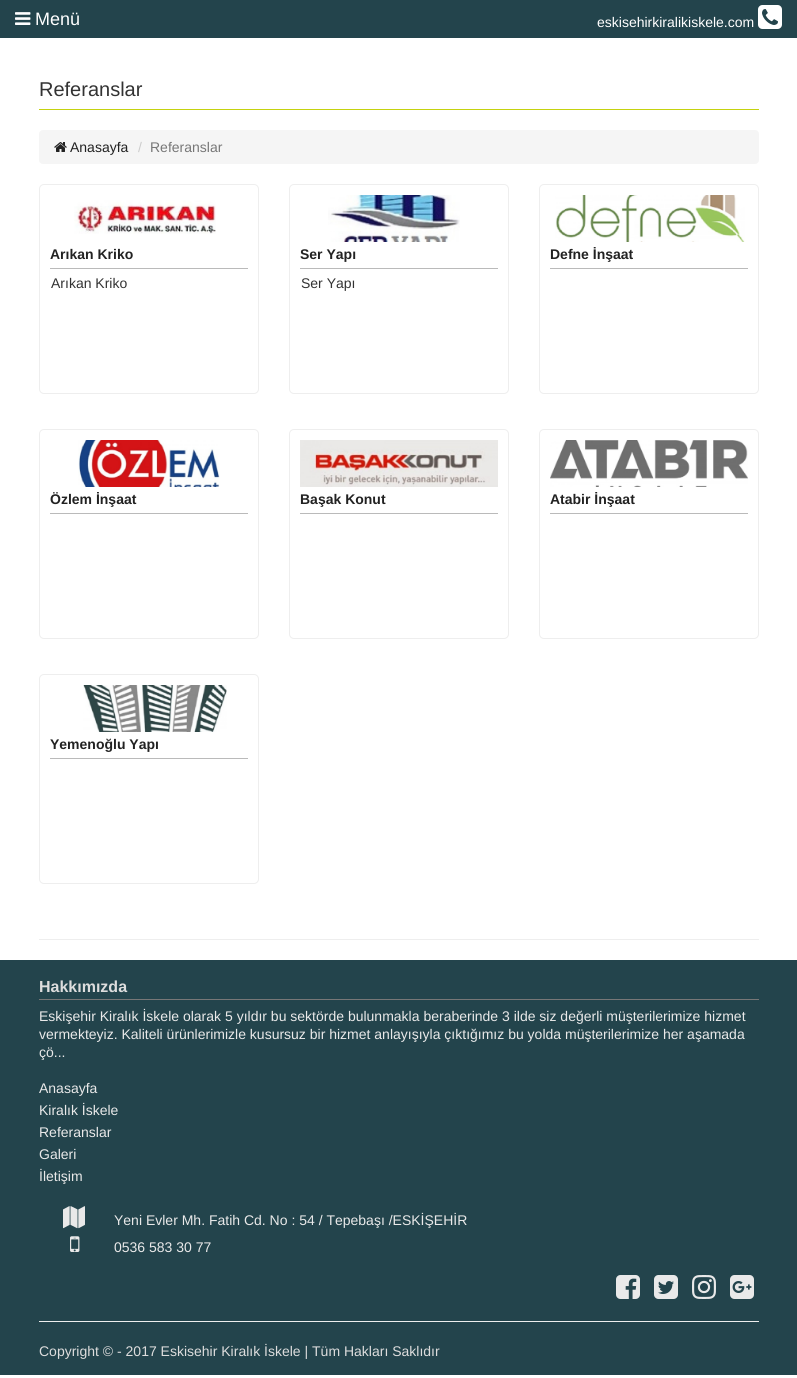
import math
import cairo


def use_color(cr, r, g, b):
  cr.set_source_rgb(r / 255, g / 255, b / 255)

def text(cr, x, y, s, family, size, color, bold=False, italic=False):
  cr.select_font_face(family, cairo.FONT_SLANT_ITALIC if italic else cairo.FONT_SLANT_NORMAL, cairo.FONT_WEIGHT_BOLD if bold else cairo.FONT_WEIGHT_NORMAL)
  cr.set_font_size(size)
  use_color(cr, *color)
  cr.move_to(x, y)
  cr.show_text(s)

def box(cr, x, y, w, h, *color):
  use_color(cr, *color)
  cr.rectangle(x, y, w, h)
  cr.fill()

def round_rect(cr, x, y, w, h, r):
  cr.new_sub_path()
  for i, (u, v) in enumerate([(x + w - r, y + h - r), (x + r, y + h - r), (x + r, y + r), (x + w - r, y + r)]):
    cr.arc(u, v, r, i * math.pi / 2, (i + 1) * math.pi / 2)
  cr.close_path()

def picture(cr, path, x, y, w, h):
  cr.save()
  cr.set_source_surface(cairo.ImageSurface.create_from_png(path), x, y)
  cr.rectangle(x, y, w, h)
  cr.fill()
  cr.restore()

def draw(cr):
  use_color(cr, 255, 255, 255)
  cr.paint()
  box(cr, 0, 0, 797, 38, 35, 68, 76)
  picture(cr, "img_01.png", 15, 12, 16, 13)
  picture(cr, "img_02.png", 758, 5, 24, 24)
  box(cr, 39, 109, 720, 1, 196, 210, 15)
  use_color(cr, 245, 245, 245)
  round_rect(cr, 39, 130, 720, 34, 4)
  cr.fill()
  picture(cr, "img_03.png", 54, 142, 13, 10)
  round_rect(cr, 39.5, 184.5, 219, 209, 4.5)
  use_color(cr, 238, 238, 238)
  cr.set_line_width(1)
  cr.stroke()
  picture(cr, "img_04.png", 74, 200, 142, 34)
  box(cr, 50, 268, 198, 1, 186, 186, 186)
  round_rect(cr, 289.5, 184.5, 219, 209, 4.5)
  use_color(cr, 238, 238, 238)
  cr.stroke()
  picture(cr, "img_05.png", 328, 195, 132, 47)
  box(cr, 300, 268, 198, 1, 186, 186, 186)
  round_rect(cr, 539.5, 184.5, 219, 209, 4.5)
  use_color(cr, 238, 238, 238)
  cr.stroke()
  picture(cr, "img_06.png", 555, 195, 190, 47)
  box(cr, 550, 268, 198, 1, 186, 186, 186)
  round_rect(cr, 39.5, 429.5, 219, 209, 4.5)
  use_color(cr, 238, 238, 238)
  cr.stroke()
  picture(cr, "img_07.png", 78, 440, 142, 47)
  box(cr, 50, 513, 198, 1, 186, 186, 186)
  round_rect(cr, 289.5, 429.5, 219, 209, 4.5)
  use_color(cr, 238, 238, 238)
  cr.stroke()
  picture(cr, "img_08.png", 300, 440, 198, 47)
  box(cr, 300, 513, 198, 1, 186, 186, 186)
  round_rect(cr, 539.5, 429.5, 219, 209, 4.5)
  use_color(cr, 238, 238, 238)
  cr.stroke()
  picture(cr, "img_09.png", 550, 440, 198, 47)
  box(cr, 550, 513, 198, 1, 186, 186, 186)
  round_rect(cr, 39.5, 674.5, 219, 209, 4.5)
  use_color(cr, 238, 238, 238)
  cr.stroke()
  picture(cr, "img_10.png", 83, 685, 144, 47)
  box(cr, 50, 758, 198, 1, 186, 186, 186)
  box(cr, 39, 939, 720, 1, 238, 238, 238)
  box(cr, 0, 960, 797, 415, 35, 68, 76)
  box(cr, 39, 999, 720, 1, 119, 119, 119)
  picture(cr, "img_11.png", 63, 1206, 22, 23)
  picture(cr, "img_12.png", 70, 1236, 10, 16)
  picture(cr, "img_13.png", 616, 1275, 24, 24)
  picture(cr, "img_14.png", 654, 1275, 24, 24)
  picture(cr, "img_15.png", 692, 1275, 24, 24)
  picture(cr, "img_16.png", 730, 1275, 24, 24)
  box(cr, 39, 1321, 720, 1, 238, 238, 238)
  text(cr, 35, 25, "Menü", "Liberation Sans", 18, (255, 255, 255))
  text(cr, 597, 27, "eskisehirkiralikiskele.com", "Liberation Sans", 14, (255, 255, 255))
  text(cr, 39, 96, "Referanslar", "Liberation Sans", 20, (51, 51, 51))
  text(cr, 70, 152, "Anasayfa", "Liberation Sans", 14, (34, 34, 34))
  text(cr, 138, 152, "/", "Liberation Sans", 14, (204, 204, 204))
  text(cr, 150, 152, "Referanslar", "Liberation Sans", 14, (119, 119, 119))
  text(cr, 50, 259, "Arıkan Kriko", "Liberation Sans", 14, (34, 34, 34), bold=True)
  text(cr, 51, 288, "Arıkan Kriko", "Liberation Sans", 14, (51, 51, 51))
  text(cr, 300, 259, "Ser Yapı", "Liberation Sans", 14, (34, 34, 34), bold=True)
  text(cr, 301, 288, "Ser Yapı", "Liberation Sans", 14, (51, 51, 51))
  text(cr, 550, 259, "Defne İnşaat", "Liberation Sans", 14, (34, 34, 34), bold=True)
  text(cr, 50, 504, "Özlem İnşaat", "Liberation Sans", 14, (34, 34, 34), bold=True)
  text(cr, 300, 504, "Başak Konut", "Liberation Sans", 14, (34, 34, 34), bold=True)
  text(cr, 550, 504, "Atabir İnşaat", "Liberation Sans", 14, (34, 34, 34), bold=True)
  text(cr, 50, 749, "Yemenoğlu Yapı", "Liberation Sans", 14, (34, 34, 34), bold=True)
  text(cr, 39, 992, "Hakkımızda", "Liberation Sans", 16, (221, 221, 221), bold=True)
  text(cr, 39, 1021, "Eskişehir Kiralık İskele olarak 5 yıldır bu sektörde bulunmakla beraberinde 3 ilde siz değerli müşterilerimize hizmet", "Liberation Sans", 14, (233, 233, 233))
  text(cr, 39, 1039, "vermekteyiz. Kaliteli ürünlerimizle kusursuz bir hizmet anlayışıyla çıktığımız bu yolda müşterilerimize her aşamada", "Liberation Sans", 14, (233, 233, 233))
  text(cr, 39, 1057, "çö...", "Liberation Sans", 14, (233, 233, 233))
  text(cr, 39, 1093, "Anasayfa", "Liberation Sans", 14, (233, 233, 233))
  text(cr, 39, 1115, "Kiralık İskele", "Liberation Sans", 14, (233, 233, 233))
  text(cr, 39, 1137, "Referanslar", "Liberation Sans", 14, (233, 233, 233))
  text(cr, 39, 1159, "Galeri", "Liberation Sans", 14, (233, 233, 233))
  text(cr, 39, 1181, "İletişim", "Liberation Sans", 14, (233, 233, 233))
  text(cr, 114, 1225, "Yeni Evler Mh. Fatih Cd. No : 54 / Tepebaşı /ESKİŞEHİR", "Liberation Sans", 14, (233, 233, 233))
  text(cr, 114, 1252, "0536 583 30 77", "Liberation Sans", 14, (233, 233, 233))
  text(cr, 39, 1356, "Copyright © - 2017 Eskisehir Kiralık İskele | Tüm Hakları Saklıdır", "Liberation Sans", 14, (221, 221, 221))


surface = cairo.ImageSurface(cairo.FORMAT_RGB24, 797, 1378)
cr = cairo.Context(surface)
options = cairo.FontOptions()
options.set_hint_metrics(cairo.HINT_METRICS_OFF)
options.set_hint_style(cairo.HINT_STYLE_NONE)
cr.set_font_options(options)
cr.set_miter_limit(4)
draw(cr)
surface.write_to_png("out.png")
